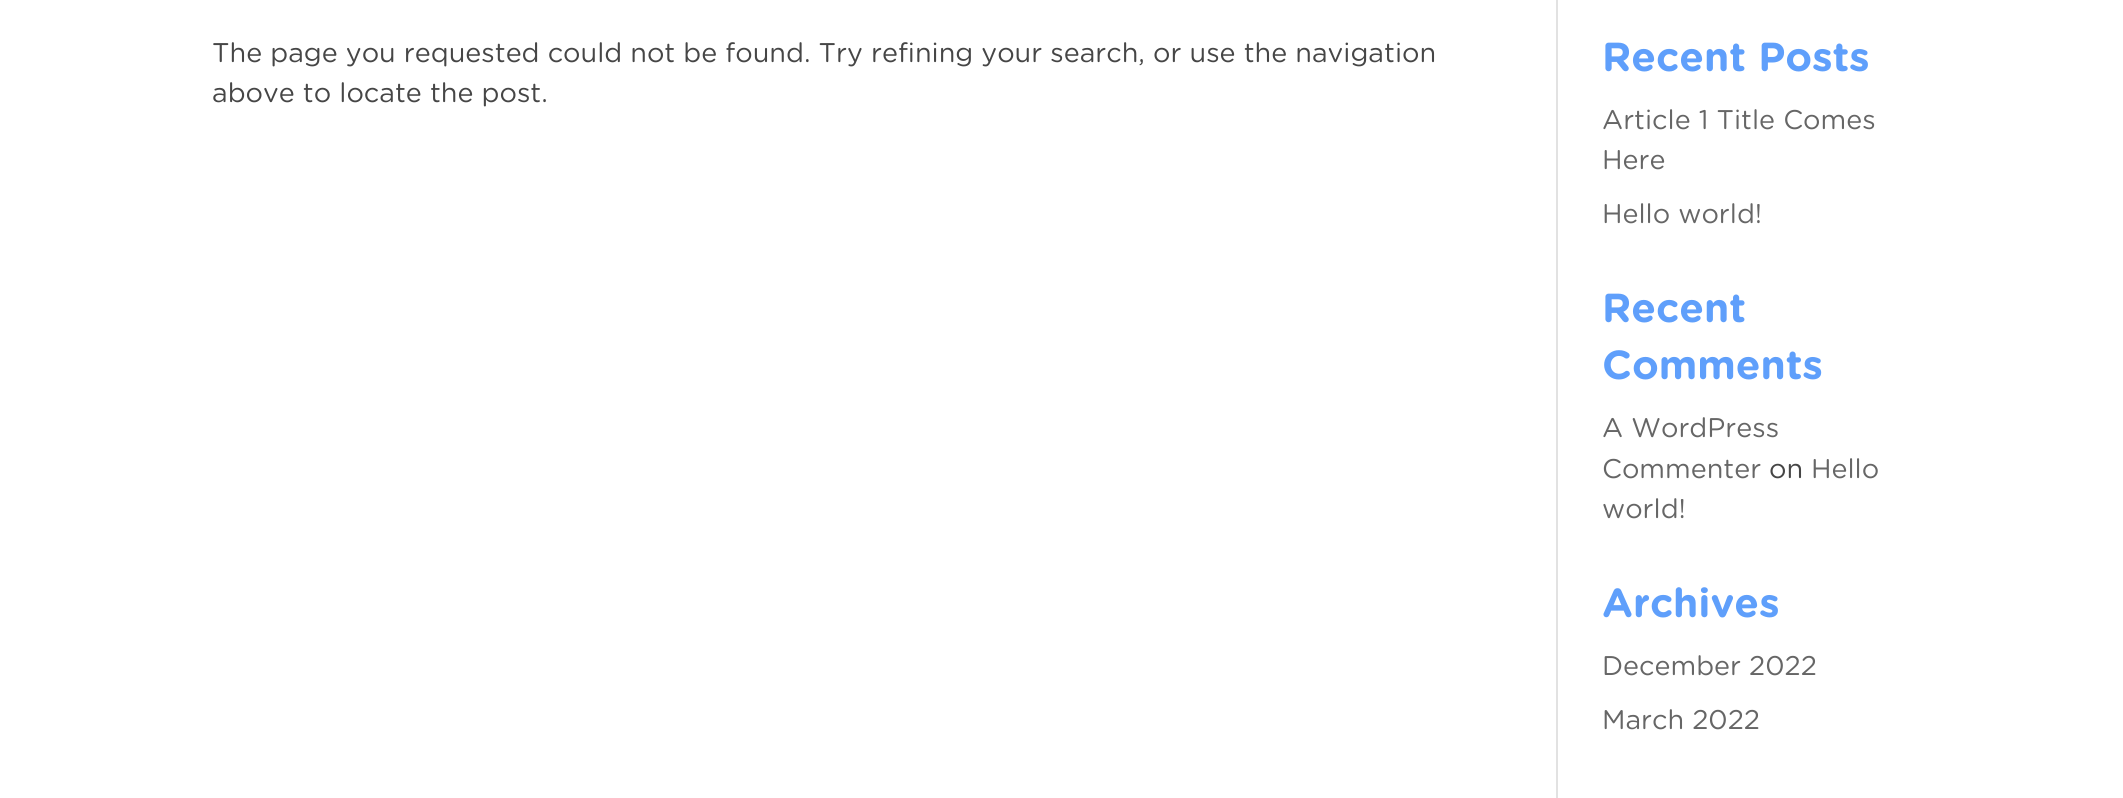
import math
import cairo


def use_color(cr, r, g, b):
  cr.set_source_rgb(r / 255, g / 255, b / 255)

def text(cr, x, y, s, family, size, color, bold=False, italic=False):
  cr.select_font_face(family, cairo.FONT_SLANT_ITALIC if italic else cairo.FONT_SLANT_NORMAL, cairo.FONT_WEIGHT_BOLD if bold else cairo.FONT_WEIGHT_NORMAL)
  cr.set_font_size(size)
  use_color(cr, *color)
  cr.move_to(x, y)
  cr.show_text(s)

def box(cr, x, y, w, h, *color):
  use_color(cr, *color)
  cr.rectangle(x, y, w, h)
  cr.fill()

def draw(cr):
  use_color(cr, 255, 255, 255)
  cr.paint()
  box(cr, 1556, 0, 2, 798, 226, 226, 226)
  text(cr, 212, 62, "The page you requested could not be found. Try refining your search, or use the navigation", "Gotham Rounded", 27, (70, 70, 70))
  text(cr, 212, 102, "above to locate the post.", "Gotham Rounded", 27, (70, 70, 70))
  text(cr, 1602, 71, "Recent Posts", "Gotham Rounded", 40.5, (95, 159, 251), bold=True)
  text(cr, 1602, 129, "Article 1 Title Comes", "Gotham Rounded", 27, (102, 102, 102))
  text(cr, 1602, 169, "Here", "Gotham Rounded", 27, (102, 102, 102))
  text(cr, 1602, 223, "Hello world!", "Gotham Rounded", 27, (102, 102, 102))
  text(cr, 1602, 322, "Recent", "Gotham Rounded", 40.5, (95, 159, 251), bold=True)
  text(cr, 1602, 379, "Comments", "Gotham Rounded", 40.5, (95, 159, 251), bold=True)
  text(cr, 1602, 437, "A WordPress", "Gotham Rounded", 27, (102, 102, 102))
  text(cr, 1602, 478, "Commenter", "Gotham Rounded", 27, (102, 102, 102))
  text(cr, 1769, 478, "on", "Gotham Rounded", 27, (70, 70, 70))
  text(cr, 1811, 478, "Hello", "Gotham Rounded", 27, (102, 102, 102))
  text(cr, 1602, 518, "world!", "Gotham Rounded", 27, (102, 102, 102))
  text(cr, 1602, 617, "Archives", "Gotham Rounded", 40.5, (95, 159, 251), bold=True)
  text(cr, 1602, 675, "December 2022", "Gotham Rounded", 27, (102, 102, 102))
  text(cr, 1602, 729, "March 2022", "Gotham Rounded", 27, (102, 102, 102))


surface = cairo.ImageSurface(cairo.FORMAT_RGB24, 2123, 798)
cr = cairo.Context(surface)
options = cairo.FontOptions()
options.set_hint_metrics(cairo.HINT_METRICS_OFF)
options.set_hint_style(cairo.HINT_STYLE_NONE)
cr.set_font_options(options)
cr.set_miter_limit(4)
draw(cr)
surface.write_to_png("out.png")
